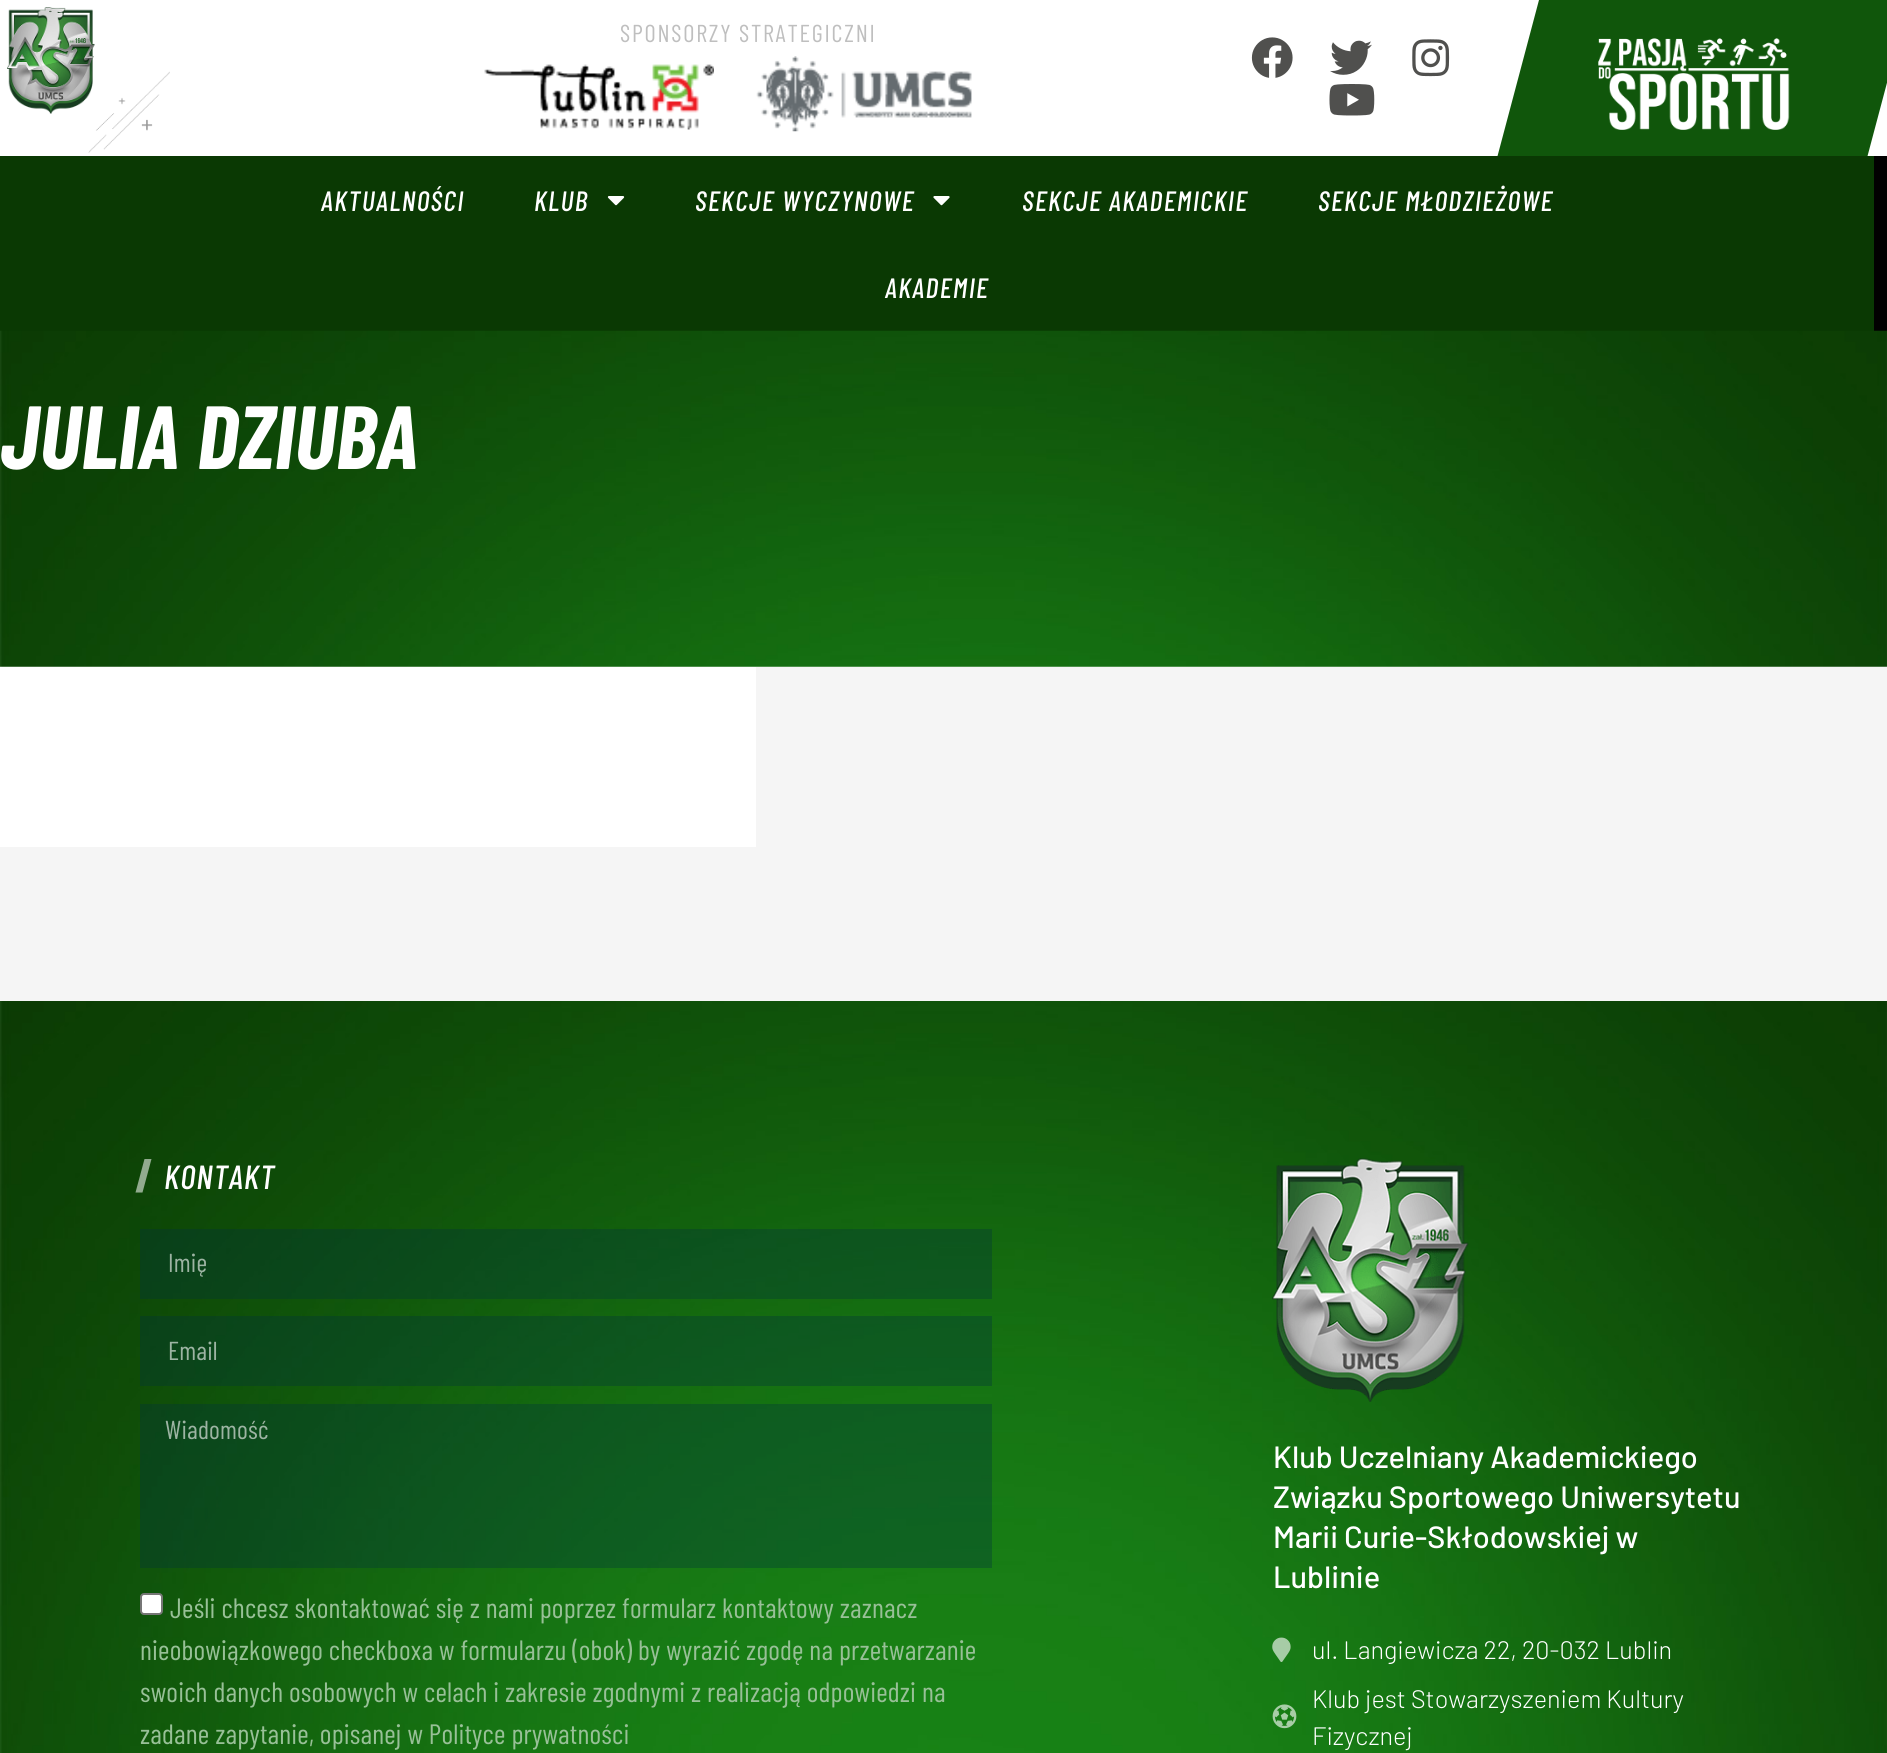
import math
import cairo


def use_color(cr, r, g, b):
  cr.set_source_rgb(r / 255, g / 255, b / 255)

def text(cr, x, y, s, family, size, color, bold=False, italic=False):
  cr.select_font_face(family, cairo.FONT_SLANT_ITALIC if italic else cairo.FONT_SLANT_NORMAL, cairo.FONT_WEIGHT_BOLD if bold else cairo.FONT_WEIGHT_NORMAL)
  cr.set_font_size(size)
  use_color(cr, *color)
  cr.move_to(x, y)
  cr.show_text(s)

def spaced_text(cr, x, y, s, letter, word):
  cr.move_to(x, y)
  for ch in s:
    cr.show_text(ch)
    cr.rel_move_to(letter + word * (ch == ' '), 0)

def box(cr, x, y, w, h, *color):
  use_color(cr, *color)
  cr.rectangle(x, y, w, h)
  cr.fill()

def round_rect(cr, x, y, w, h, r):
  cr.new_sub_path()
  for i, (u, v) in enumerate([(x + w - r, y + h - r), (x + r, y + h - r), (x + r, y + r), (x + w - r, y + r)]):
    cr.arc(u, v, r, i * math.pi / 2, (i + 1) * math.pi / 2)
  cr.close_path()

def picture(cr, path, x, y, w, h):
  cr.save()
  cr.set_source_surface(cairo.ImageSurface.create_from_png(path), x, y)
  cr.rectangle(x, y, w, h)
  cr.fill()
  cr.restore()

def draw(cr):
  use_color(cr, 255, 255, 255)
  cr.paint()
  picture(cr, "img_02.png", 88, 71, 82, 82)
  picture(cr, "img_01.png", 7, 7, 88, 107)
  picture(cr, "img_03.png", 484, 64, 230, 66)
  picture(cr, "img_04.png", 756, 56, 216, 76)
  use_color(cr, 16, 86, 11)
  cr.new_path()
  cr.move_to(1539, 0)
  cr.line_to(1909, 0)
  cr.line_to(1867, 158)
  cr.line_to(1497, 158)
  cr.close_path()
  cr.fill()
  picture(cr, "img_05.png", 1598, 38, 192, 92)
  picture(cr, "img_06.png", 1251, 37, 42, 41)
  picture(cr, "img_07.png", 1330, 40, 42, 35)
  picture(cr, "img_08.png", 1412, 39, 38, 38)
  picture(cr, "img_09.png", 1329, 84, 46, 32)
  box(cr, 1874, 156, 13, 175, 2, 1, 1)
  box(cr, 0, 156, 1874, 175, 10, 57, 3)
  picture(cr, "img_10.png", 607, 196, 18, 10)
  picture(cr, "img_11.png", 933, 196, 17, 10)
  picture(cr, "img_12.png", 0, 330, 1887, 337)
  box(cr, 0, 667, 1887, 334, 245, 245, 245)
  box(cr, 0, 667, 756, 180, 255, 255, 255)
  picture(cr, "img_13.png", 0, 1001, 1887, 752)
  use_color(cr, 146, 171, 143)
  cr.new_path()
  cr.move_to(144.5, 1159)
  cr.line_to(151.5, 1159)
  cr.line_to(142.5, 1192.5)
  cr.line_to(135.5, 1192.5)
  cr.close_path()
  cr.fill()
  cr.set_source_rgba(0, 0.204, 0.239, 0.34)
  cr.rectangle(140, 1229, 852, 70)
  cr.fill()
  cr.rectangle(140, 1316, 852, 70)
  cr.fill()
  cr.rectangle(140, 1404, 852, 164)
  cr.fill()
  use_color(cr, 255, 255, 255)
  round_rect(cr, 141, 1594, 21, 20, 3)
  cr.fill_preserve()
  use_color(cr, 118, 118, 118)
  cr.stroke()
  picture(cr, "img_14.png", 1272, 1158, 197, 244)
  picture(cr, "img_15.png", 1272, 1637, 19, 25)
  picture(cr, "img_16.png", 1272, 1704, 25, 25)
  cr.select_font_face("Barlow Condensed")
  cr.set_font_size(24.5)
  use_color(cr, 191, 191, 191)
  spaced_text(cr, 620, 42, "SPONSORZY STRATEGICZNI", 1.75, 0)
  cr.select_font_face("Barlow Condensed Medium", cairo.FONT_SLANT_ITALIC)
  cr.set_font_size(28)
  use_color(cr, 255, 255, 255)
  spaced_text(cr, 321, 211, "AKTUALNOŚCI", 1.4, 0)
  spaced_text(cr, 534, 211, "KLUB", 1.4, 0)
  spaced_text(cr, 695, 211, "SEKCJE WYCZYNOWE", 1.4, 0)
  spaced_text(cr, 1022, 211, "SEKCJE AKADEMICKIE", 1.4, 0)
  spaced_text(cr, 1318, 211, "SEKCJE MŁODZIEŻOWE", 1.4, 0)
  spaced_text(cr, 885, 298, "AKADEMIE", 1.4, 0)
  text(cr, 0, 469, "JULIA DZIUBA", "Barlow Condensed", 89.5, (255, 255, 255), bold=True, italic=True)
  cr.select_font_face("Barlow Condensed Medium", cairo.FONT_SLANT_ITALIC)
  cr.set_font_size(33.5)
  spaced_text(cr, 164, 1189, "KONTAKT", 1, 0)
  cr.select_font_face("Barlow Condensed")
  cr.set_font_size(26)
  use_color(cr, 157, 180, 163)
  spaced_text(cr, 168, 1272, "Imię", 0.18, 0)
  spaced_text(cr, 168, 1360, "Email", 0.18, 0)
  spaced_text(cr, 165, 1439, "Wiadomość", 0.18, 0)
  cr.set_font_size(28)
  use_color(cr, 152, 192, 151)
  spaced_text(cr, 170, 1618, "Jeśli chcesz skontaktować się z nami poprzez formularz kontaktowy zaznacz", 0.18, 0)
  spaced_text(cr, 140, 1660, "nieobowiązkowego checkboxa w formularzu (obok) by wyrazić zgodę na przetwarzanie", 0.18, 0)
  spaced_text(cr, 140, 1702, "swoich danych osobowych w celach i zakresie zgodnymi z realizacją odpowiedzi na", 0.18, 0)
  spaced_text(cr, 140, 1744, "zadane zapytanie, opisanej w Polityce prywatności", 0.18, 0)
  text(cr, 1273, 1468, "Klub Uczelniany Akademickiego", "Barlow Medium", 30.75, (255, 255, 255))
  text(cr, 1273, 1508, "Związku Sportowego Uniwersytetu", "Barlow Medium", 30.75, (255, 255, 255))
  text(cr, 1273, 1548, "Marii Curie-Skłodowskiej w", "Barlow Medium", 30.75, (255, 255, 255))
  text(cr, 1273, 1588, "Lublinie", "Barlow Medium", 30.75, (255, 255, 255))
  text(cr, 1312, 1659, "ul. Langiewicza 22, 20-032 Lublin", "Barlow Light", 25.25, (255, 255, 255))
  text(cr, 1312, 1708, "Klub jest Stowarzyszeniem Kultury", "Barlow Light", 25.25, (255, 255, 255))
  text(cr, 1312, 1745, "Fizycznej", "Barlow Light", 25.25, (255, 255, 255))


surface = cairo.ImageSurface(cairo.FORMAT_RGB24, 1887, 1753)
cr = cairo.Context(surface)
options = cairo.FontOptions()
options.set_hint_metrics(cairo.HINT_METRICS_OFF)
options.set_hint_style(cairo.HINT_STYLE_NONE)
cr.set_font_options(options)
cr.set_miter_limit(4)
draw(cr)
surface.write_to_png("out.png")
